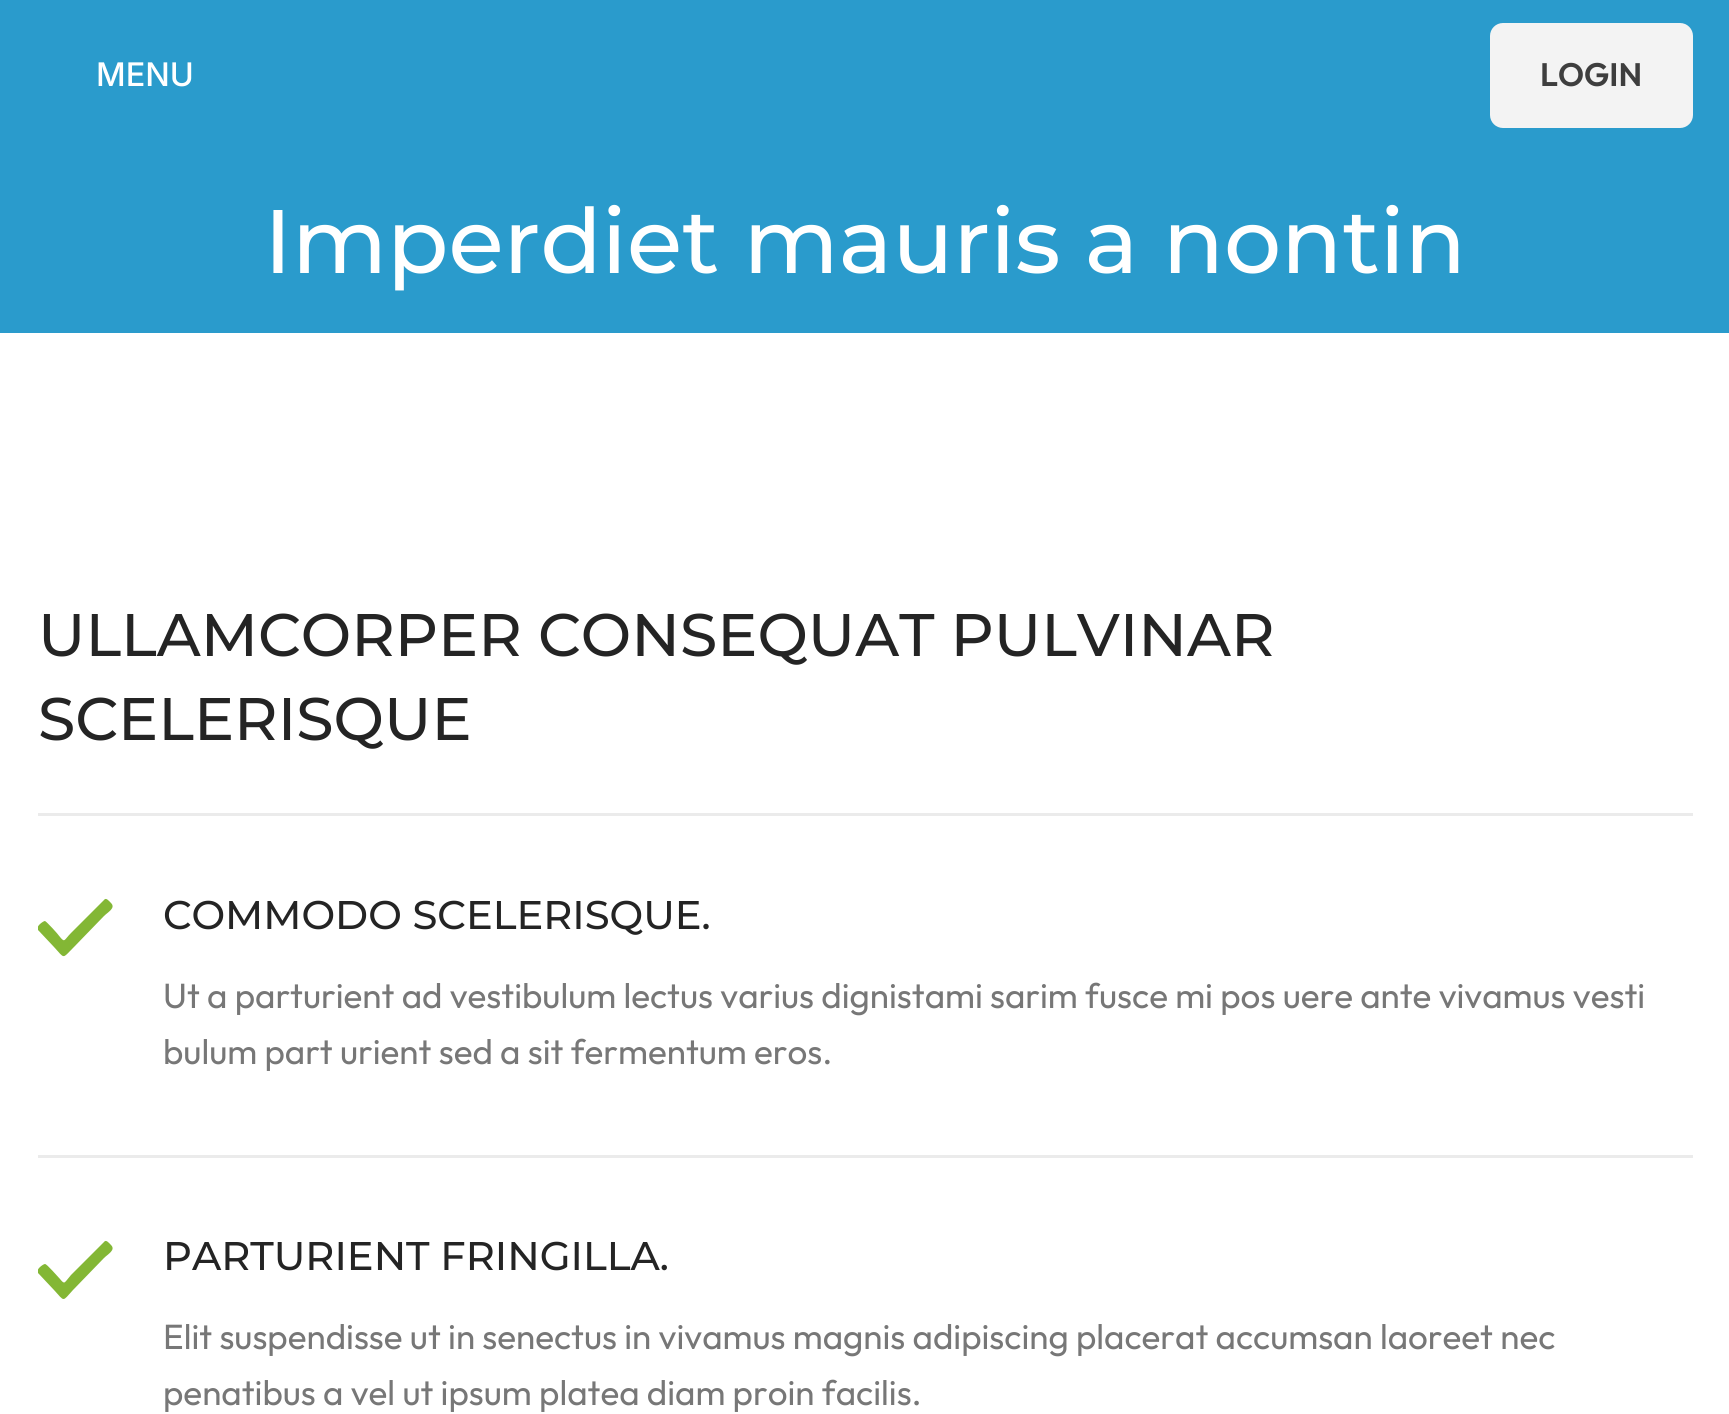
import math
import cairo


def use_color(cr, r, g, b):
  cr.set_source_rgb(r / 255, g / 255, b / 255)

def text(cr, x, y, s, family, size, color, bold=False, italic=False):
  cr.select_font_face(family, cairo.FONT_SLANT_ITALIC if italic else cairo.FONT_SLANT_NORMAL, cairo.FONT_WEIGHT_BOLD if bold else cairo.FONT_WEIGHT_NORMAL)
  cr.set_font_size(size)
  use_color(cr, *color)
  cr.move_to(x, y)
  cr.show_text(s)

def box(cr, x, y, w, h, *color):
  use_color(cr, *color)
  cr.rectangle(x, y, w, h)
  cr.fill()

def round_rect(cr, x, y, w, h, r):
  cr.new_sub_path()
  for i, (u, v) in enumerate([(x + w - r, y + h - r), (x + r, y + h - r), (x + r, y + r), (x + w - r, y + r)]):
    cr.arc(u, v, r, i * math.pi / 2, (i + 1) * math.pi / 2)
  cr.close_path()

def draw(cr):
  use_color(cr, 255, 255, 255)
  cr.paint()
  box(cr, 0, 0, 1729, 333, 42, 155, 204)
  use_color(cr, 243, 243, 243)
  round_rect(cr, 1490, 23, 203, 105, 13)
  cr.fill()
  box(cr, 38, 813, 1655, 3, 235, 235, 235)
  box(cr, 38, 1155, 1655, 3, 235, 235, 235)
  cr.save()
  cr.rectangle(38, 890, 75, 75)
  cr.clip()
  use_color(cr, 131, 183, 53)
  cr.new_path()
  cr.move_to(38, 930)
  cr.curve_to(35, 927, 43, 921, 45, 921)
  cr.curve_to(47, 922, 58, 934, 60, 937)
  cr.curve_to(65, 943, 64, 940, 71, 933)
  cr.line_to(104, 900)
  cr.curve_to(106, 897, 109, 901, 111, 903)
  cr.curve_to(116, 908, 108, 912, 104, 916)
  cr.line_to(73, 948)
  cr.curve_to(62, 959, 65, 959, 54, 947)
  cr.close_path()
  cr.fill()
  cr.restore()
  cr.save()
  cr.rectangle(38, 1233, 75, 75)
  cr.clip()
  use_color(cr, 131, 183, 53)
  cr.new_path()
  cr.move_to(38, 1273)
  cr.curve_to(35, 1270, 43, 1264, 45, 1264)
  cr.curve_to(47, 1264, 58, 1277, 60, 1279)
  cr.curve_to(65, 1285, 64, 1283, 71, 1275)
  cr.line_to(104, 1242)
  cr.curve_to(106, 1239, 109, 1243, 111, 1245)
  cr.curve_to(116, 1250, 108, 1254, 104, 1258)
  cr.line_to(73, 1290)
  cr.curve_to(62, 1302, 65, 1302, 54, 1290)
  cr.close_path()
  cr.fill()
  cr.restore()
  text(cr, 96, 86, "MENU", "Inter Medium", 32.5, (255, 255, 255))
  text(cr, 1540, 86, "LOGIN", "Outfit SemiBold", 32.5, (62, 62, 62))
  text(cr, 264, 273, "Imperdiet mauris a nontin", "Montserrat Medium", 90, (255, 255, 255))
  text(cr, 38, 656, "ULLAMCORPER CONSEQUAT PULVINAR", "Montserrat Medium", 60, (36, 36, 36))
  text(cr, 38, 740, "SCELERISQUE", "Montserrat Medium", 60, (36, 36, 36))
  text(cr, 163, 929, "COMMODO SCELERISQUE.", "Montserrat Medium", 40, (36, 36, 36))
  text(cr, 163, 1008, "Ut a parturient ad vestibulum lectus varius dignistami sarim fusce mi pos uere ante vivamus vesti", "Outfit", 35, (119, 119, 119))
  text(cr, 163, 1064, "bulum part urient sed a sit fermentum eros.", "Outfit", 35, (119, 119, 119))
  text(cr, 163, 1270, "PARTURIENT FRINGILLA.", "Montserrat Medium", 40, (36, 36, 36))
  text(cr, 163, 1349, "Elit suspendisse ut in senectus in vivamus magnis adipiscing placerat accumsan laoreet nec", "Outfit", 35, (119, 119, 119))
  text(cr, 163, 1405, "penatibus a vel ut ipsum platea diam proin facilis.", "Outfit", 35, (119, 119, 119))


surface = cairo.ImageSurface(cairo.FORMAT_RGB24, 1729, 1414)
cr = cairo.Context(surface)
options = cairo.FontOptions()
options.set_hint_metrics(cairo.HINT_METRICS_OFF)
options.set_hint_style(cairo.HINT_STYLE_NONE)
cr.set_font_options(options)
cr.set_miter_limit(4)
draw(cr)
surface.write_to_png("out.png")
